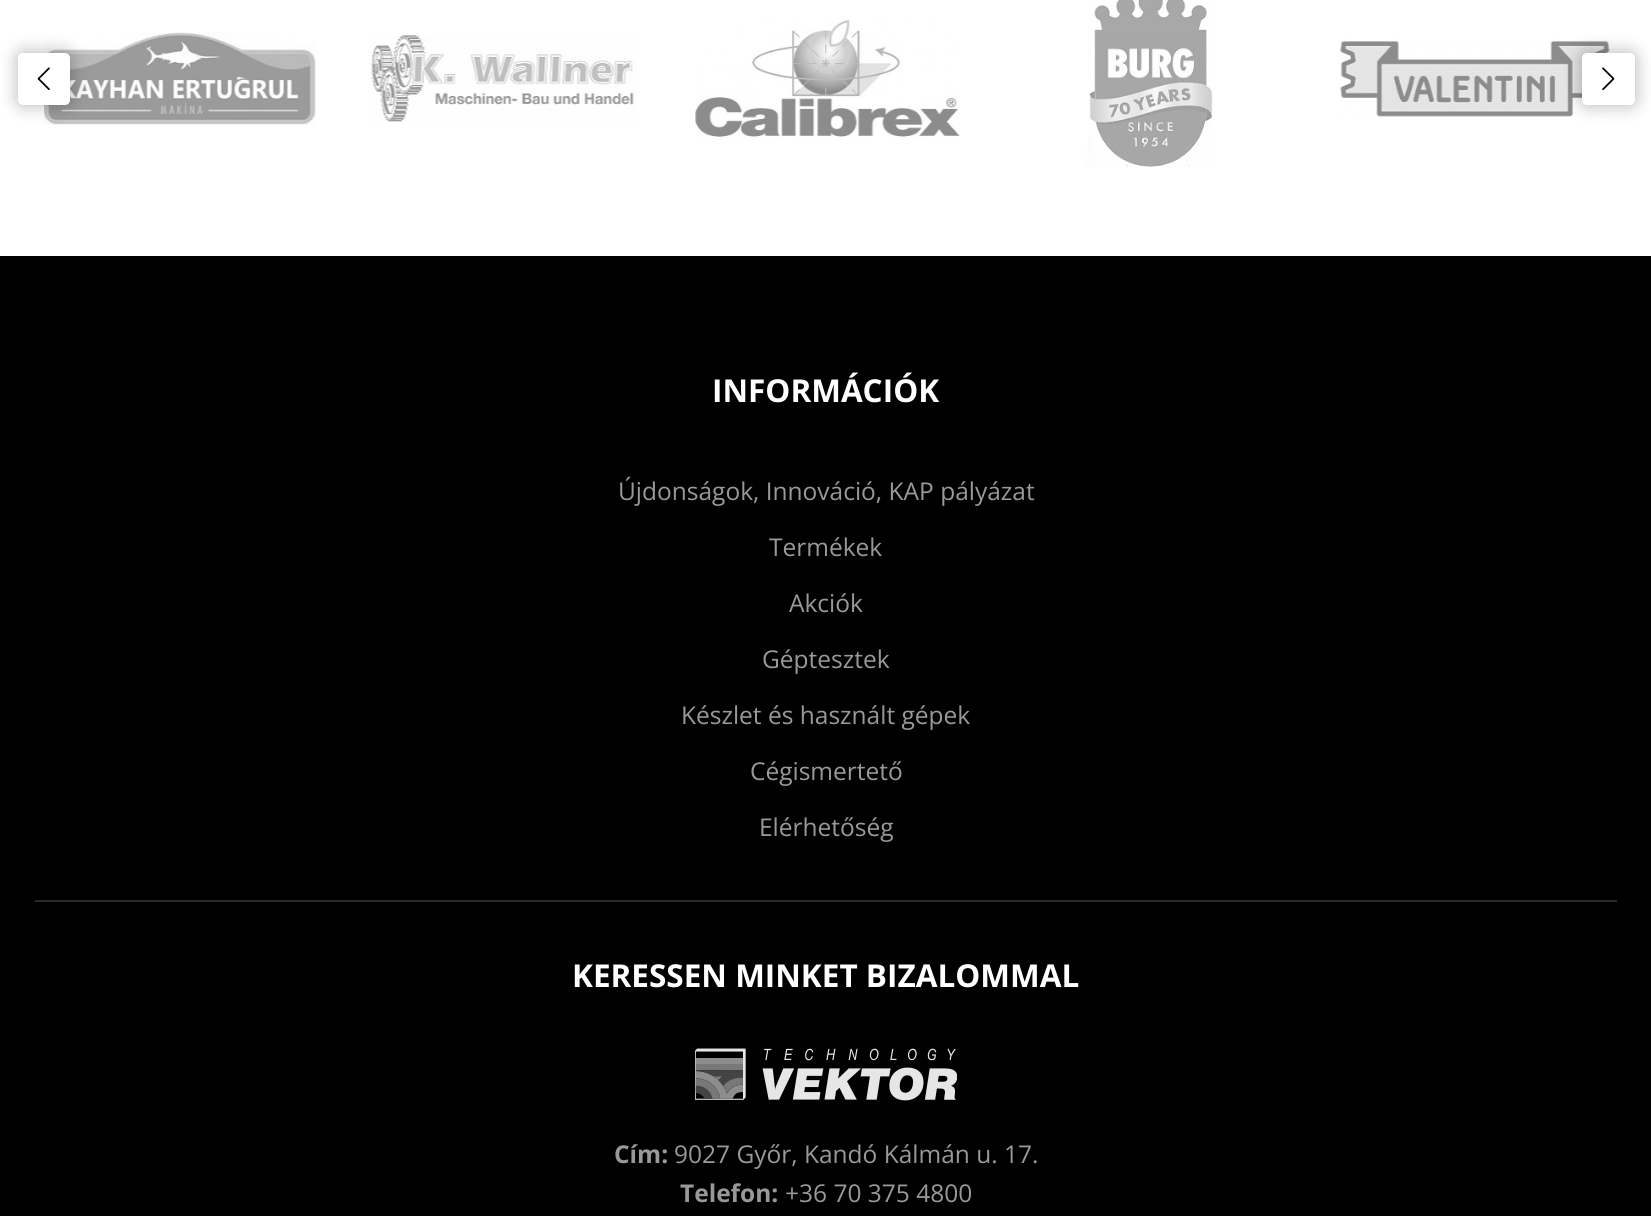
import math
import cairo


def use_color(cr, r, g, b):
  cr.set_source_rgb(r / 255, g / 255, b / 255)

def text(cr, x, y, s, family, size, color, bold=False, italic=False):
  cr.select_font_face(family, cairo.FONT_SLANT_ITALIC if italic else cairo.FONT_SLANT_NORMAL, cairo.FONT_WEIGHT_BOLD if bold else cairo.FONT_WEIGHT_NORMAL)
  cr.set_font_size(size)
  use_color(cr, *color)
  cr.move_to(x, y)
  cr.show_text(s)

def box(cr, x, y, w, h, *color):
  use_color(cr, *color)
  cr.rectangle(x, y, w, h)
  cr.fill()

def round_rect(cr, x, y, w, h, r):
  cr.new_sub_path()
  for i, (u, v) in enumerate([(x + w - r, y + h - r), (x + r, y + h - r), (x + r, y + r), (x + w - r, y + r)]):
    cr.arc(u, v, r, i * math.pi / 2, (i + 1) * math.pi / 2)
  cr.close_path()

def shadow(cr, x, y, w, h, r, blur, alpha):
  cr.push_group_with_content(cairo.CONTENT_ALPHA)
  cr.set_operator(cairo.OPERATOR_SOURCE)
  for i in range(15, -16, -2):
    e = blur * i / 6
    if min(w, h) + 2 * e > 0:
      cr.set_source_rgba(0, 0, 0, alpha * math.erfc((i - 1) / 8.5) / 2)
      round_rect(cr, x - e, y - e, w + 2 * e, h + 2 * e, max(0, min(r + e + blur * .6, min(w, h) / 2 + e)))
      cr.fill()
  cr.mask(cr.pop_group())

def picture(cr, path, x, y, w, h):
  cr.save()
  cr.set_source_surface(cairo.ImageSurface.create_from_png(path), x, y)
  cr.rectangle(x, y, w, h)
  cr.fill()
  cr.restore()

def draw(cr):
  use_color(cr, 255, 255, 255)
  cr.paint()
  picture(cr, "img_01.png", 44, 32, 272, 93)
  picture(cr, "img_02.png", 371, 35, 267, 87)
  picture(cr, "img_03.png", 695, 19, 265, 119)
  picture(cr, "img_04.png", 1087, 0, 126, 168)
  picture(cr, "img_05.png", 1339, 39, 271, 78)
  use_color(cr, 0, 0, 0)
  shadow(cr, 18, 53, 52, 52, 5, 9, 0.3)
  use_color(cr, 255, 255, 255)
  round_rect(cr, 18, 53, 52, 52, 5)
  cr.fill()
  picture(cr, "img_06.png", 37, 67, 13, 23)
  use_color(cr, 0, 0, 0)
  shadow(cr, 1582, 53, 53, 52, 5, 9, 0.3)
  use_color(cr, 255, 255, 255)
  round_rect(cr, 1582, 53, 53, 52, 5)
  cr.fill()
  picture(cr, "img_07.png", 1602, 67, 13, 23)
  box(cr, 0, 256, 1651, 960, 0, 0, 0)
  box(cr, 35, 900, 1582, 2, 40, 43, 46)
  picture(cr, "img_08.png", 695, 1048, 262, 53)
  text(cr, 712, 402, "INFORMÁCIÓK", "Open Sans", 31.5, (255, 255, 255), bold=True)
  text(cr, 618, 500, "Újdonságok, Innováció, KAP pályázat", "Open Sans", 24.5, (153, 153, 153))
  text(cr, 769, 556, "Termékek", "Open Sans", 24.5, (153, 153, 153))
  text(cr, 789, 612, "Akciók", "Open Sans", 24.5, (153, 153, 153))
  text(cr, 762, 668, "Géptesztek", "Open Sans", 24.5, (153, 153, 153))
  text(cr, 681, 724, "Készlet és használt gépek", "Open Sans", 24.5, (153, 153, 153))
  text(cr, 750, 780, "Cégismertető", "Open Sans", 24.5, (153, 153, 153))
  text(cr, 759, 836, "Elérhetőség", "Open Sans", 24.5, (153, 153, 153))
  text(cr, 572, 987, "KERESSEN MINKET BIZALOMMAL", "Open Sans", 31.5, (255, 255, 255), bold=True)
  text(cr, 614, 1163, "Cím:", "Open Sans", 24.5, (153, 153, 153), bold=True)
  text(cr, 674, 1163, "9027 Győr, Kandó Kálmán u. 17.", "Open Sans", 24.5, (153, 153, 153))
  text(cr, 680, 1202, "Telefon:", "Open Sans", 24.5, (153, 153, 153), bold=True)
  text(cr, 785, 1202, "+36 70 375 4800", "Open Sans", 24.5, (153, 153, 153))


surface = cairo.ImageSurface(cairo.FORMAT_RGB24, 1651, 1216)
cr = cairo.Context(surface)
options = cairo.FontOptions()
options.set_hint_metrics(cairo.HINT_METRICS_OFF)
options.set_hint_style(cairo.HINT_STYLE_NONE)
cr.set_font_options(options)
cr.set_miter_limit(4)
draw(cr)
surface.write_to_png("out.png")
